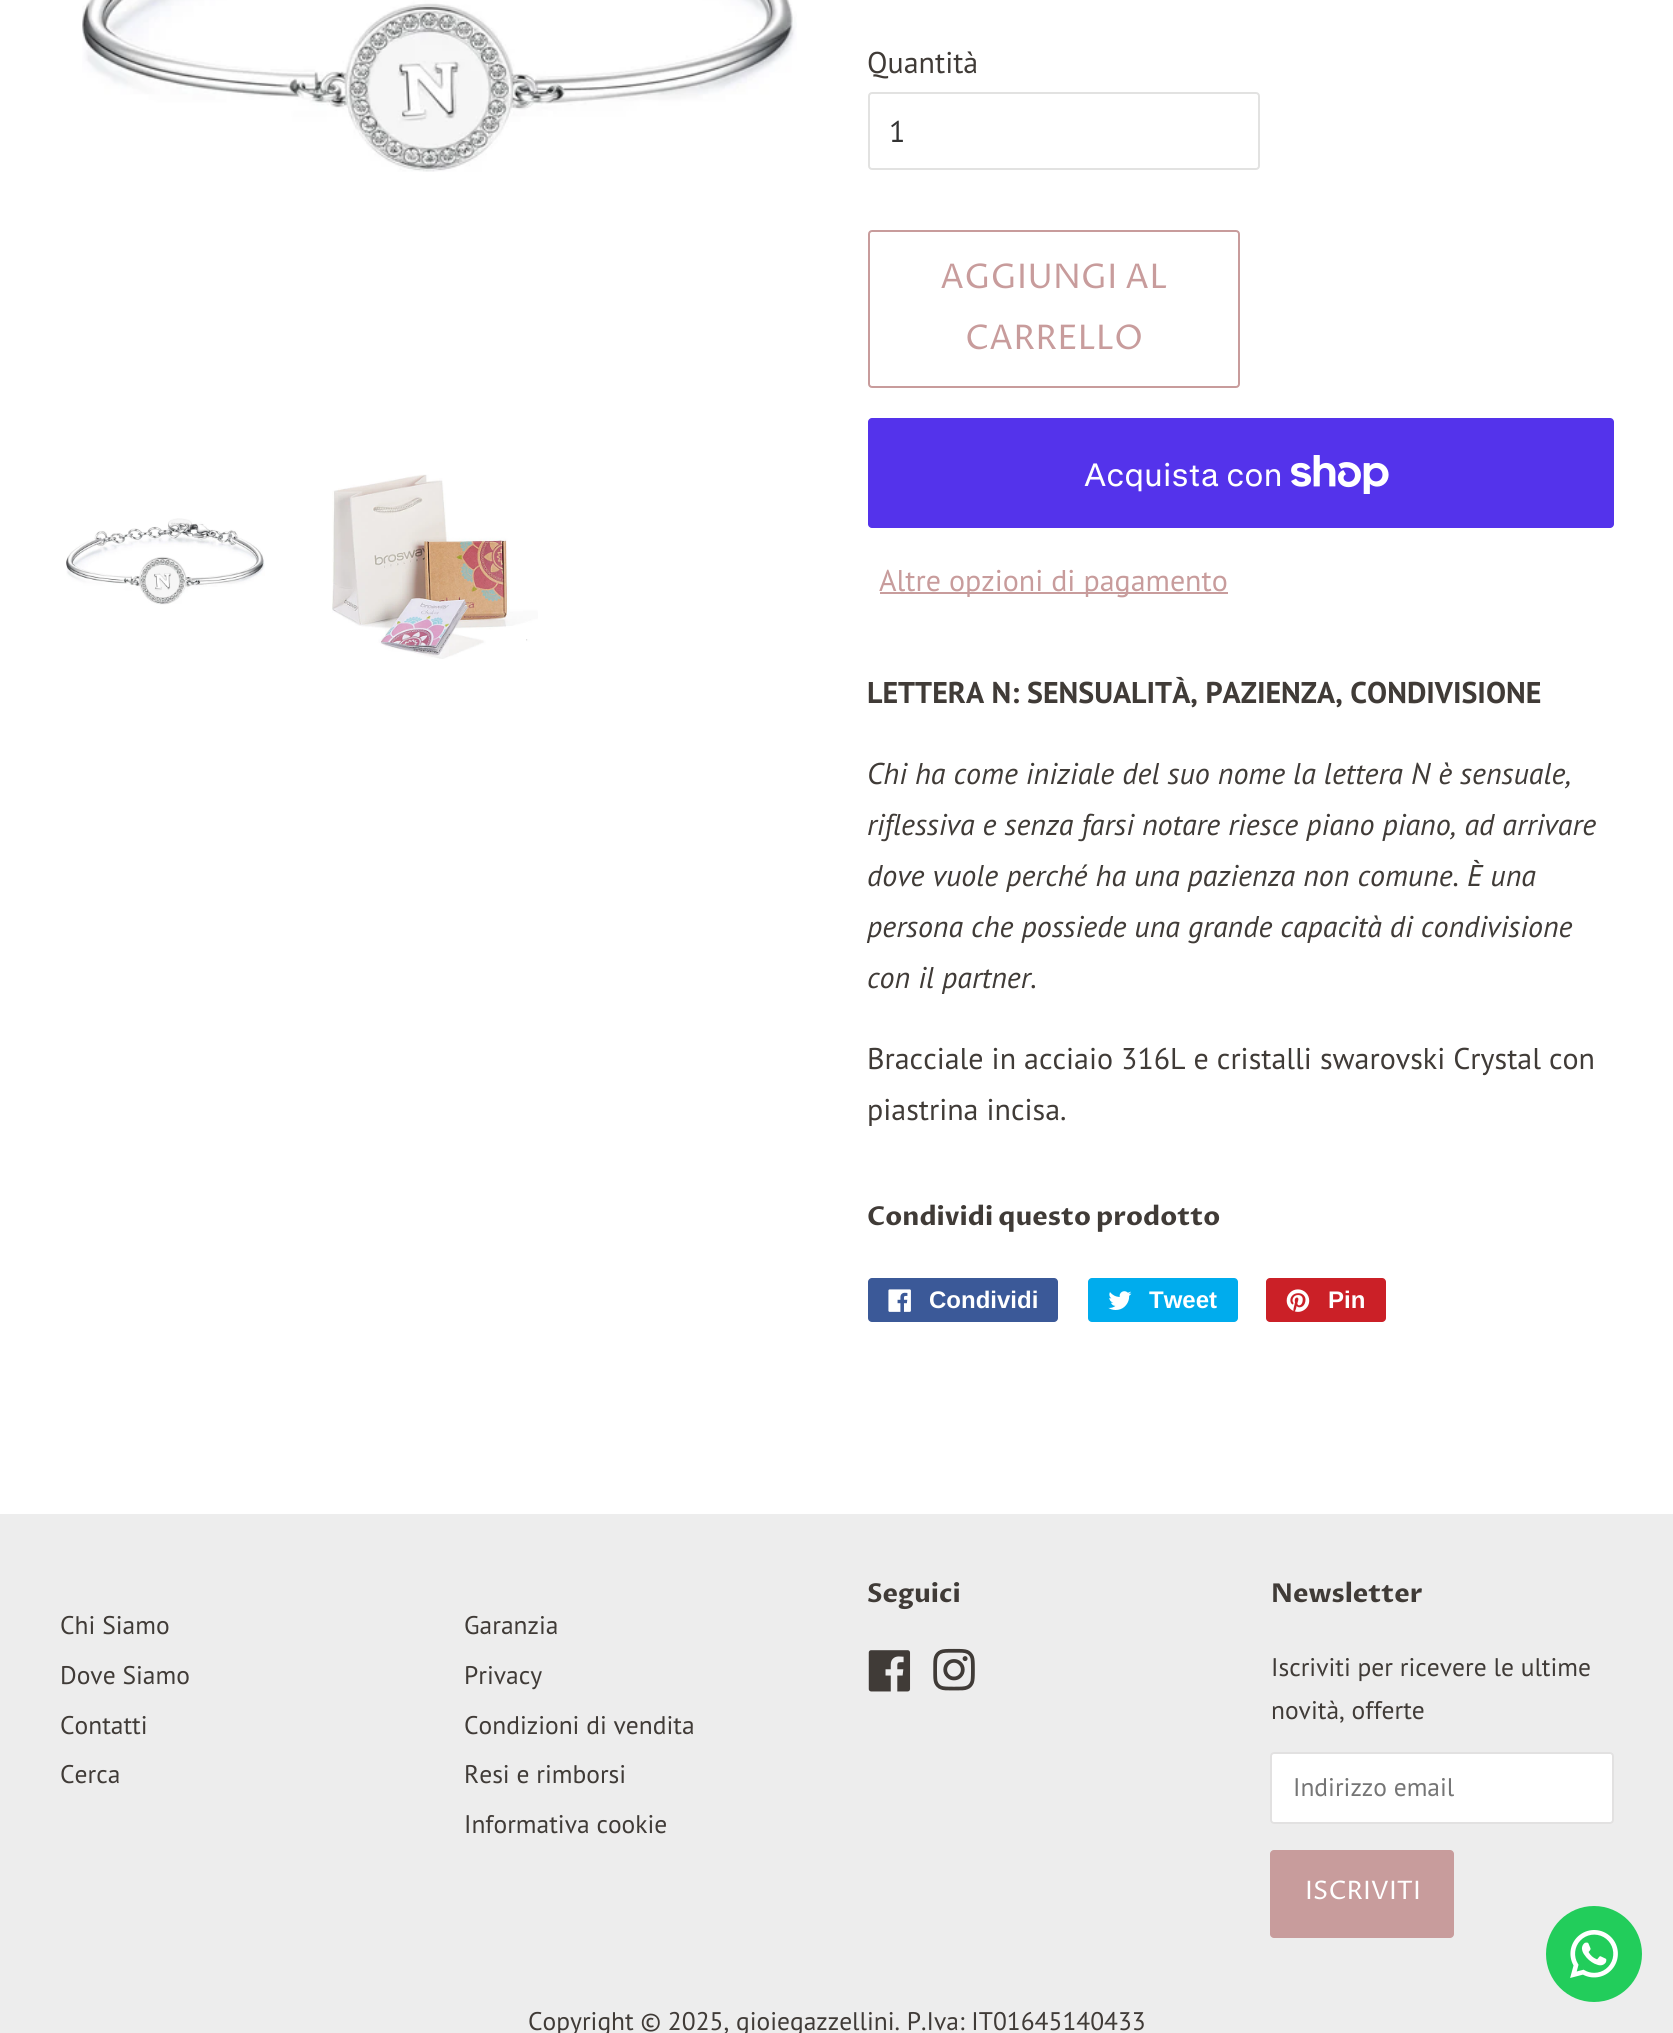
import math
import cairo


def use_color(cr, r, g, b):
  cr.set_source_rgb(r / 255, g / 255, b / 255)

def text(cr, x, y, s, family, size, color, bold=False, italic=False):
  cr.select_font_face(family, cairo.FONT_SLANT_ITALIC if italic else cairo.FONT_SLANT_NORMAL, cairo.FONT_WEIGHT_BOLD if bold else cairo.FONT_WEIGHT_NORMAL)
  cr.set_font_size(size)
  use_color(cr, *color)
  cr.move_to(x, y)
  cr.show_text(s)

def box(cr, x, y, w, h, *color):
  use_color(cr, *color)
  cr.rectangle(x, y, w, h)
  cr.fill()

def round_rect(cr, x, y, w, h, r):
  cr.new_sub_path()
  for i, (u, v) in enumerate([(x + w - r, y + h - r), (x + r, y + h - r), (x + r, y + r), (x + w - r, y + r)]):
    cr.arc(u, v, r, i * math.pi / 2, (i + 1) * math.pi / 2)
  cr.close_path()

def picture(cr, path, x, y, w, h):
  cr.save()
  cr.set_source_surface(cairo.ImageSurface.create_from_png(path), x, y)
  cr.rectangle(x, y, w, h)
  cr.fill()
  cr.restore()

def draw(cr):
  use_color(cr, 255, 255, 255)
  cr.paint()
  picture(cr, "img_01.png", 82, 0, 715, 172)
  picture(cr, "img_02.png", 66, 518, 199, 87)
  picture(cr, "img_03.png", 332, 474, 206, 185)
  round_rect(cr, 869, 93, 390, 76, 3)
  use_color(cr, 226, 226, 225)
  cr.stroke()
  round_rect(cr, 869, 231, 370, 156, 3)
  use_color(cr, 200, 156, 156)
  cr.stroke()
  use_color(cr, 84, 51, 235)
  round_rect(cr, 868, 418, 746, 110, 4)
  cr.fill()
  picture(cr, "img_04.png", 1291, 455, 98, 39)
  box(cr, 880, 592, 348, 2, 200, 156, 156)
  use_color(cr, 59, 89, 152)
  round_rect(cr, 868, 1278, 190, 44, 4)
  cr.fill()
  picture(cr, "img_05.png", 888, 1289, 23, 23)
  use_color(cr, 0, 172, 237)
  round_rect(cr, 1088, 1278, 150, 44, 4)
  cr.fill()
  picture(cr, "img_06.png", 1108, 1291, 24, 19)
  use_color(cr, 203, 32, 39)
  round_rect(cr, 1266, 1278, 120, 44, 4)
  cr.fill()
  picture(cr, "img_07.png", 1286, 1289, 24, 23)
  box(cr, 0, 1514, 1673, 519, 237, 237, 237)
  picture(cr, "img_08.png", 868, 1650, 43, 42)
  picture(cr, "img_09.png", 933, 1648, 42, 43)
  use_color(cr, 255, 255, 255)
  round_rect(cr, 1270, 1752, 344, 72, 4)
  cr.fill()
  round_rect(cr, 1271, 1753, 342, 70, 3)
  cr.set_source_rgba(0.251, 0.231, 0.216, 0.15)
  cr.stroke()
  use_color(cr, 200, 156, 156)
  round_rect(cr, 1270, 1850, 184, 88, 4)
  cr.fill()
  use_color(cr, 34, 205, 91)
  cr.arc(1594, 1954, 48, 0, 2 * math.pi)
  cr.fill()
  picture(cr, "img_10.png", 1570, 1930, 48, 48)
  text(cr, 867, 73, "Quantità", "PT Sans", 30, (64, 59, 55))
  text(cr, 889, 142, "1", "PT Sans", 30, (51, 51, 51))
  text(cr, 940, 288, "AGGIUNGI AL", "Proza Libre", 34, (200, 156, 156))
  text(cr, 965, 349, "CARRELLO", "Proza Libre", 34, (200, 156, 156))
  text(cr, 1084, 486, "Acquista con", "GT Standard", 32, (255, 255, 255))
  text(cr, 879, 591, "Altre opzioni di pagamento", "PT Sans", 30, (200, 156, 156))
  text(cr, 867, 703, "LETTERA N: SENSUALITÀ, PAZIENZA, CONDIVISIONE", "PT Sans", 30, (64, 59, 55), bold=True)
  text(cr, 867, 784, "Chi ha come iniziale del suo nome la lettera N è sensuale,", "PT Sans", 30, (64, 59, 55), italic=True)
  text(cr, 867, 835, "riflessiva e senza farsi notare riesce piano piano, ad arrivare", "PT Sans", 30, (64, 59, 55), italic=True)
  text(cr, 867, 886, "dove vuole perché ha una pazienza non comune. È una", "PT Sans", 30, (64, 59, 55), italic=True)
  text(cr, 867, 937, "persona che possiede una grande capacità di condivisione", "PT Sans", 30, (64, 59, 55), italic=True)
  text(cr, 867, 988, "con il partner.", "PT Sans", 30, (64, 59, 55), italic=True)
  text(cr, 867, 1069, "Bracciale in acciaio 316L e cristalli swarovski Crystal con", "PT Sans", 30, (64, 59, 55))
  text(cr, 867, 1120, "piastrina incisa.", "PT Sans", 30, (64, 59, 55))
  text(cr, 867, 1225, "Condividi questo prodotto", "Proza Libre", 26, (64, 59, 55), bold=True)
  text(cr, 929, 1308, "Condividi", "Liberation Sans", 24, (255, 255, 255), bold=True)
  text(cr, 1149, 1308, "Tweet", "Liberation Sans", 24, (255, 255, 255), bold=True)
  text(cr, 1328, 1308, "Pin", "Liberation Sans", 24, (255, 255, 255), bold=True)
  text(cr, 867, 1602, "Seguici", "Proza Libre", 26, (64, 59, 55), bold=True)
  text(cr, 1271, 1602, "Newsletter", "Proza Libre", 26, (64, 59, 55), bold=True)
  text(cr, 1271, 1676, "Iscriviti per ricevere le ultime", "PT Sans", 25.5, (64, 59, 55))
  text(cr, 1271, 1719, "novità, offerte", "PT Sans", 25.5, (64, 59, 55))
  text(cr, 1293, 1796, "Indirizzo email", "PT Sans", 25.5, (117, 117, 117))
  text(cr, 1305, 1899, "ISCRIVITI", "Proza Libre", 25.5, (255, 255, 255))
  text(cr, 60, 1634, "Chi Siamo", "PT Sans", 25.5, (64, 59, 55))
  text(cr, 60, 1684, "Dove Siamo", "PT Sans", 25.5, (64, 59, 55))
  text(cr, 60, 1734, "Contatti", "PT Sans", 25.5, (64, 59, 55))
  text(cr, 60, 1783, "Cerca", "PT Sans", 25.5, (64, 59, 55))
  text(cr, 464, 1634, "Garanzia", "PT Sans", 25.5, (64, 59, 55))
  text(cr, 464, 1684, "Privacy", "PT Sans", 25.5, (64, 59, 55))
  text(cr, 464, 1734, "Condizioni di vendita", "PT Sans", 25.5, (64, 59, 55))
  text(cr, 464, 1783, "Resi e rimborsi", "PT Sans", 25.5, (64, 59, 55))
  text(cr, 464, 1833, "Informativa cookie", "PT Sans", 25.5, (64, 59, 55))
  text(cr, 528, 2030, "Copyright © 2025, gioiegazzellini. P.Iva: IT01645140433", "PT Sans", 25.5, (64, 59, 55))


surface = cairo.ImageSurface(cairo.FORMAT_RGB24, 1673, 2033)
cr = cairo.Context(surface)
options = cairo.FontOptions()
options.set_hint_metrics(cairo.HINT_METRICS_OFF)
options.set_hint_style(cairo.HINT_STYLE_NONE)
cr.set_font_options(options)
cr.set_miter_limit(4)
draw(cr)
surface.write_to_png("out.png")
